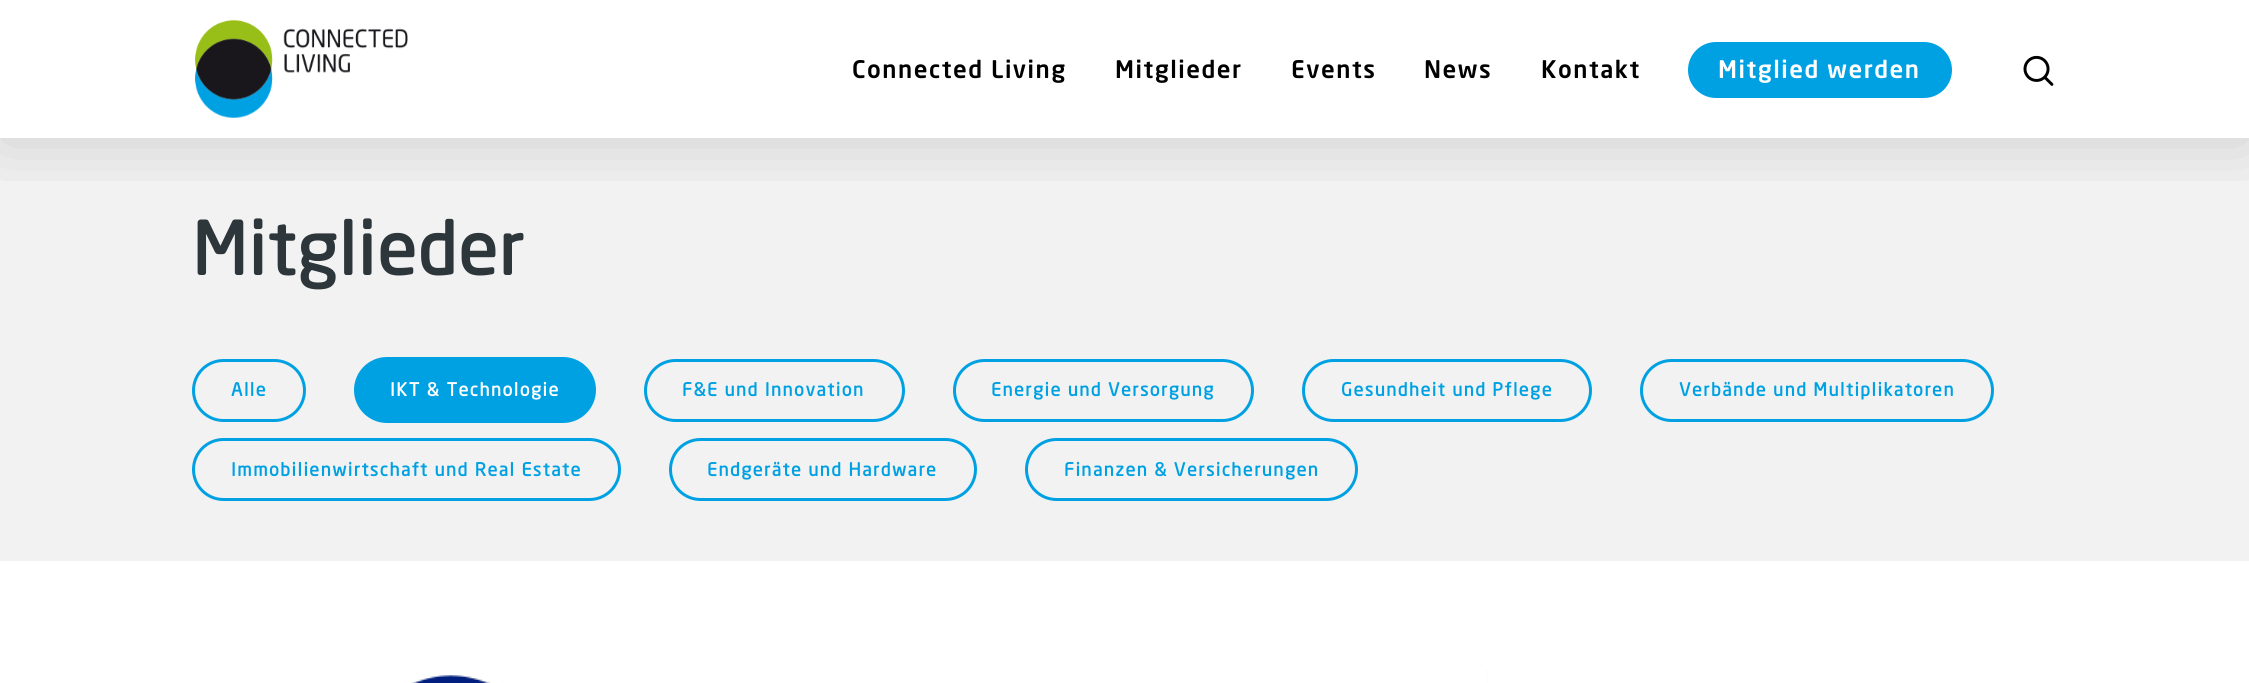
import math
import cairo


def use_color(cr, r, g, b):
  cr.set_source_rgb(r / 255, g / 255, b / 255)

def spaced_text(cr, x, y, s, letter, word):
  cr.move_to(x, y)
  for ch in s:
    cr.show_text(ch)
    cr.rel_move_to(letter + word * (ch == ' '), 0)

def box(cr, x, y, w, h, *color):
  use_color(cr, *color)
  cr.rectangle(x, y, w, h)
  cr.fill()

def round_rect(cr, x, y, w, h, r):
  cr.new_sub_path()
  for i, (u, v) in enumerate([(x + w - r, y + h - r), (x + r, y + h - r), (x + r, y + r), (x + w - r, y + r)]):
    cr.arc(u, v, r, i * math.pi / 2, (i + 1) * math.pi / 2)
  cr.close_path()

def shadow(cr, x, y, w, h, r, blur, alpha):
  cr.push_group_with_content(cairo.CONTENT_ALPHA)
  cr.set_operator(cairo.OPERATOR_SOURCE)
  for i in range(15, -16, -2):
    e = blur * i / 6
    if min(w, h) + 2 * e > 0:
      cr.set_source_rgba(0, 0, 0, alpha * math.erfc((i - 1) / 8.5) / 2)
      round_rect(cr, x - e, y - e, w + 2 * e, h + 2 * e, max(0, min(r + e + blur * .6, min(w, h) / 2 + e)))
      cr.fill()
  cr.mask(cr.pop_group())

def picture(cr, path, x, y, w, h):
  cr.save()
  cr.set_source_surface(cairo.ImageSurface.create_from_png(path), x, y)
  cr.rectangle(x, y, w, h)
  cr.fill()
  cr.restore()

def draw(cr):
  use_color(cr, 255, 255, 255)
  cr.paint()
  box(cr, 0, 138, 2249, 423, 242, 242, 242)
  cr.save()
  cr.rectangle(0, 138, 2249, 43)
  cr.clip()
  use_color(cr, 0, 0, 0)
  shadow(cr, 0, 5, 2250, 138, 0, 34, 0.15)
  cr.restore()
  picture(cr, "img_01.png", 195, 20, 213, 98)
  use_color(cr, 0, 161, 227)
  round_rect(cr, 1688, 42, 264, 56, 28)
  cr.fill()
  picture(cr, "img_02.png", 2023, 55, 31, 31)
  round_rect(cr, 193.5, 360.5, 111, 60, 30)
  cr.set_line_width(3)
  cr.stroke()
  round_rect(cr, 354, 357, 242, 66, 33)
  cr.fill()
  round_rect(cr, 645.5, 360.5, 258, 60, 30)
  cr.stroke()
  round_rect(cr, 954.5, 360.5, 298, 60, 30)
  cr.stroke()
  round_rect(cr, 1303.5, 360.5, 287, 60, 30)
  cr.stroke()
  round_rect(cr, 1641.5, 360.5, 351, 60, 30)
  cr.stroke()
  round_rect(cr, 193.5, 439.5, 426, 60, 30)
  cr.stroke()
  round_rect(cr, 670.5, 439.5, 305, 60, 30)
  cr.stroke()
  round_rect(cr, 1026.5, 439.5, 330, 60, 30)
  cr.stroke()
  picture(cr, "img_03.png", 411, 673, 353, 10)
  box(cr, 1486, 669, 1, 14, 251, 251, 251)
  cr.select_font_face("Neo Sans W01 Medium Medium")
  cr.set_font_size(24)
  use_color(cr, 0, 0, 0)
  spaced_text(cr, 852, 78, "Connected Living", 1.5, 0)
  spaced_text(cr, 1115, 78, "Mitglieder", 1.5, 0)
  spaced_text(cr, 1291, 78, "Events", 1.5, 0)
  spaced_text(cr, 1424, 78, "News", 1.5, 0)
  spaced_text(cr, 1541, 78, "Kontakt", 1.5, 0)
  use_color(cr, 255, 255, 255)
  spaced_text(cr, 1718, 78, "Mitglied werden", 1.5, 0)
  cr.select_font_face("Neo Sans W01", cairo.FONT_SLANT_NORMAL, cairo.FONT_WEIGHT_BOLD)
  cr.set_font_size(72)
  use_color(cr, 45, 54, 58)
  spaced_text(cr, 192, 275, "Mitglieder", 1.5, 0)
  cr.set_font_size(18)
  use_color(cr, 0, 161, 227)
  spaced_text(cr, 231, 396, "Alle", 1.5, 0)
  use_color(cr, 255, 255, 255)
  spaced_text(cr, 390, 396, "IKT & Technologie", 1.5, 0)
  use_color(cr, 0, 161, 227)
  spaced_text(cr, 682, 396, "F&E und Innovation", 1.5, 0)
  spaced_text(cr, 991, 396, "Energie und Versorgung", 1.5, 0)
  spaced_text(cr, 1341, 396, "Gesundheit und Pflege", 1.5, 0)
  spaced_text(cr, 1679, 396, "Verbände und Multiplikatoren", 1.5, 0)
  spaced_text(cr, 231, 476, "Immobilienwirtschaft und Real Estate", 1.5, 0)
  spaced_text(cr, 707, 476, "Endgeräte und Hardware", 1.5, 0)
  spaced_text(cr, 1064, 476, "Finanzen & Versicherungen", 1.5, 0)


surface = cairo.ImageSurface(cairo.FORMAT_RGB24, 2249, 683)
cr = cairo.Context(surface)
options = cairo.FontOptions()
options.set_hint_metrics(cairo.HINT_METRICS_OFF)
options.set_hint_style(cairo.HINT_STYLE_NONE)
cr.set_font_options(options)
cr.set_miter_limit(4)
draw(cr)
surface.write_to_png("out.png")
